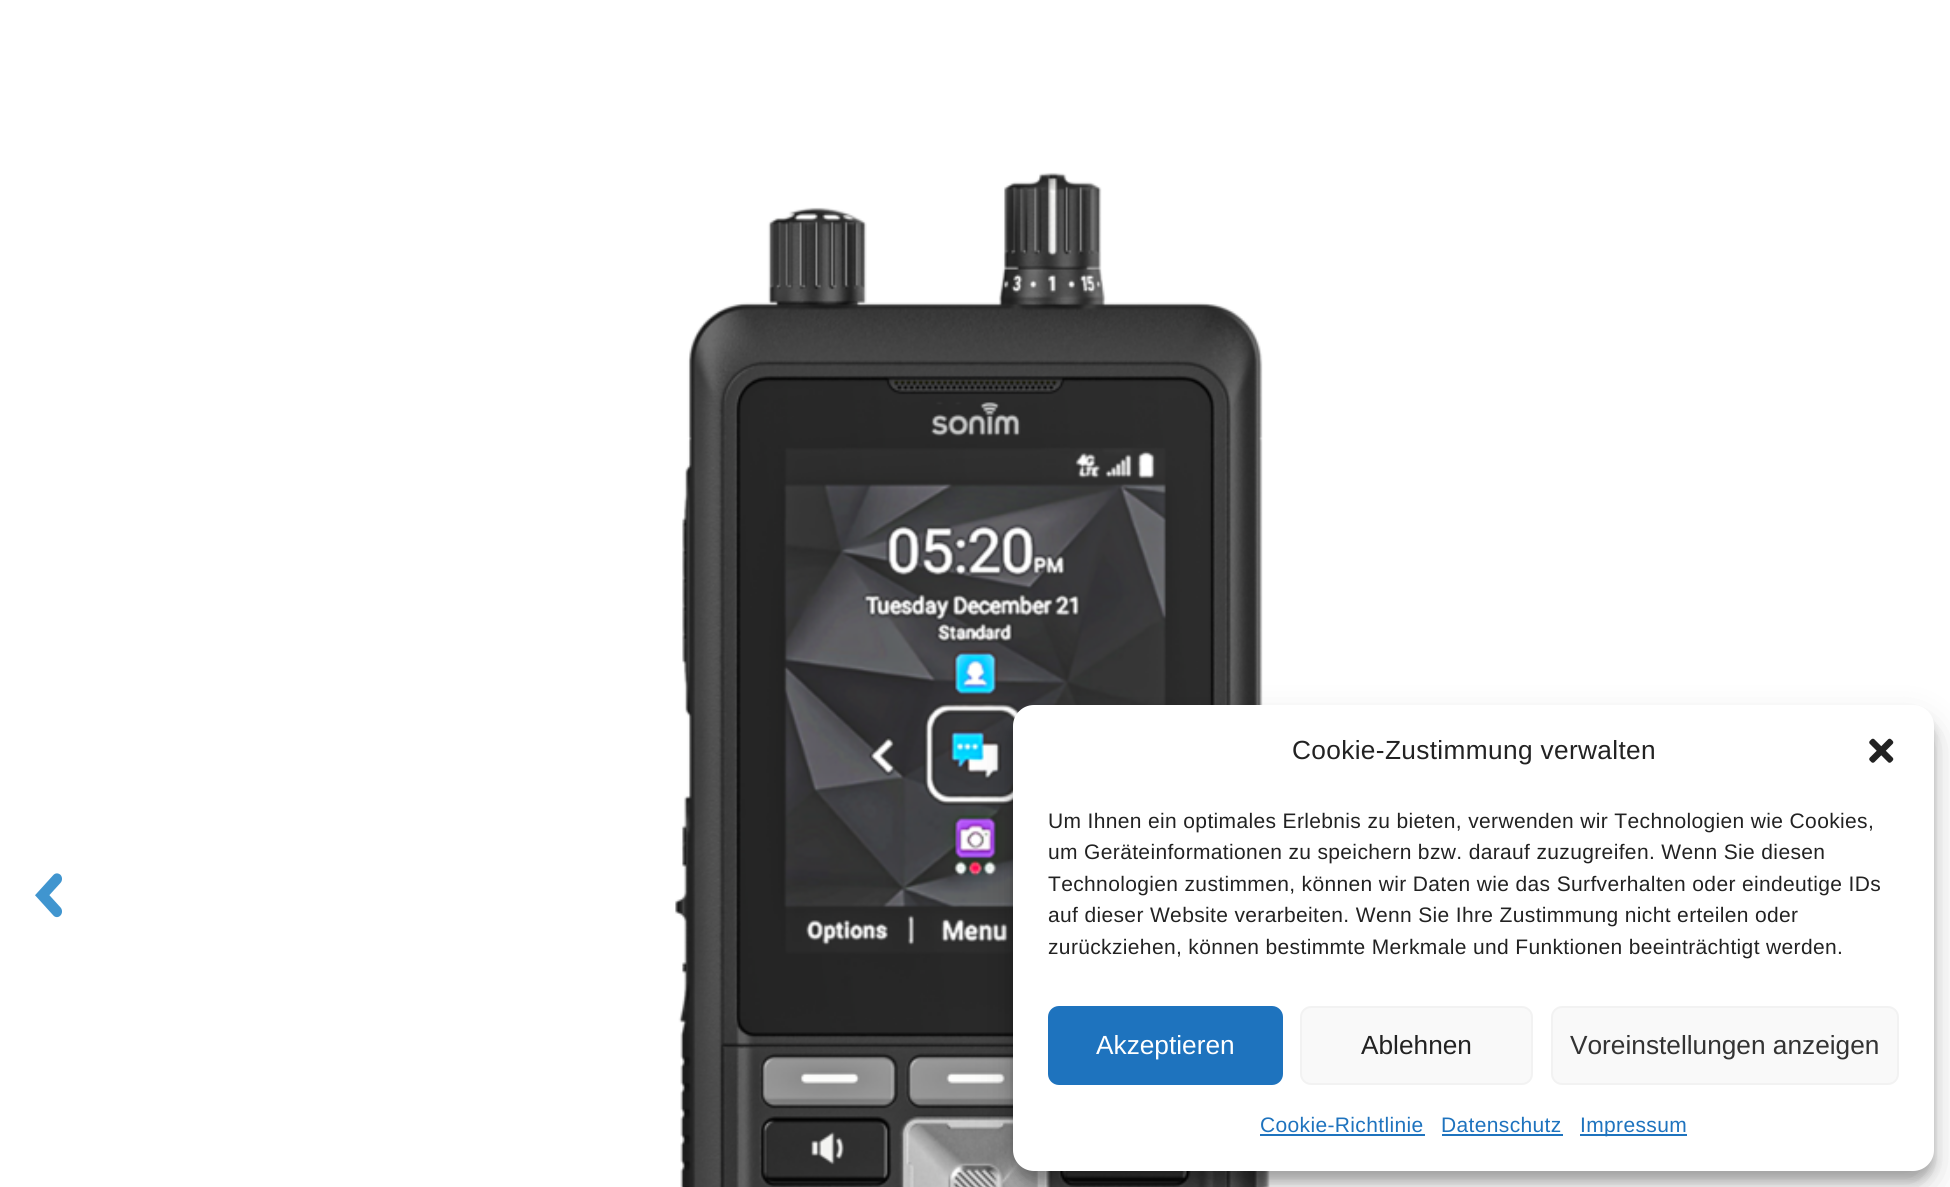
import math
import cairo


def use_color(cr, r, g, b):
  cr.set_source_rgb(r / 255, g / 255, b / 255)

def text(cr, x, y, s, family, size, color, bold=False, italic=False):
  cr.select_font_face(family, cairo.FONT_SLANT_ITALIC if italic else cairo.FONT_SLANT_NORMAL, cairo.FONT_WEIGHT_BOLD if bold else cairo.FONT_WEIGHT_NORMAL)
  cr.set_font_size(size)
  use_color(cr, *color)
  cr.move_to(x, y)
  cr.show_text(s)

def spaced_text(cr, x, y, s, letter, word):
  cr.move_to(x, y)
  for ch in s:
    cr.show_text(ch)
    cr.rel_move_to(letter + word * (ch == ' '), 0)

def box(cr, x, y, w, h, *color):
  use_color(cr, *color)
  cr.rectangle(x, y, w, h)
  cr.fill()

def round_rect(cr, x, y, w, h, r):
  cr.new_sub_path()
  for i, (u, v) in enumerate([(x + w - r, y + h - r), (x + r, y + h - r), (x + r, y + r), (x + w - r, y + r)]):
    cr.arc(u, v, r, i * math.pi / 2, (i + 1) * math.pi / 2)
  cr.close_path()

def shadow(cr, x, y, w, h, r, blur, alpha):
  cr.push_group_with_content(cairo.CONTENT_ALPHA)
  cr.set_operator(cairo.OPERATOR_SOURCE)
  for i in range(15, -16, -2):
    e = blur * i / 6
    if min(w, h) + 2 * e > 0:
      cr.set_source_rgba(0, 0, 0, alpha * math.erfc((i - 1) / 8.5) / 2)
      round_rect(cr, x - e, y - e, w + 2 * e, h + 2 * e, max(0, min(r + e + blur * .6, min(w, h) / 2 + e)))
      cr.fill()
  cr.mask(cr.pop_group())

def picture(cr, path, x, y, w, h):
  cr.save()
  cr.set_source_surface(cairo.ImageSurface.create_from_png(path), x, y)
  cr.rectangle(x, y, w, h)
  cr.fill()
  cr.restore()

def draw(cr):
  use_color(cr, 255, 255, 255)
  cr.paint()
  picture(cr, "img_01.png", 35, 873, 27, 45)
  picture(cr, "img_02.png", 675, 172, 595, 1015)
  use_color(cr, 0, 0, 0)
  shadow(cr, 1013, 716, 921, 465, 21, 5, 0.23)
  shadow(cr, 1013, 723, 921, 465, 21, 17.5, 0.19)
  use_color(cr, 255, 255, 255)
  round_rect(cr, 1013, 705, 921, 466, 21)
  cr.fill()
  picture(cr, "img_03.png", 1869, 738, 25, 25)
  use_color(cr, 30, 115, 190)
  round_rect(cr, 1049, 1007, 233, 77, 10)
  cr.fill_preserve()
  cr.stroke()
  use_color(cr, 249, 249, 249)
  round_rect(cr, 1301, 1007, 231, 77, 10)
  cr.fill_preserve()
  use_color(cr, 242, 242, 242)
  cr.stroke()
  use_color(cr, 249, 249, 249)
  round_rect(cr, 1552, 1007, 346, 77, 10)
  cr.fill_preserve()
  use_color(cr, 242, 242, 242)
  cr.stroke()
  box(cr, 1260, 1134, 165, 2, 30, 115, 190)
  box(cr, 1442, 1134, 121, 2, 30, 115, 190)
  box(cr, 1580, 1134, 107, 2, 30, 115, 190)
  cr.select_font_face("Liberation Sans")
  cr.set_font_size(26.25)
  use_color(cr, 34, 34, 34)
  spaced_text(cr, 1292, 759, "Cookie-Zustimmung verwalten", 0.35, 0)
  cr.set_font_size(21)
  spaced_text(cr, 1048, 828, "Um Ihnen ein optimales Erlebnis zu bieten, verwenden wir Technologien wie Cookies,", 0.35, 0)
  spaced_text(cr, 1048, 859, "um Geräteinformationen zu speichern bzw. darauf zuzugreifen. Wenn Sie diesen", 0.35, 0)
  spaced_text(cr, 1048, 891, "Technologien zustimmen, können wir Daten wie das Surfverhalten oder eindeutige IDs", 0.35, 0)
  spaced_text(cr, 1048, 922, "auf dieser Website verarbeiten. Wenn Sie Ihre Zustimmung nicht erteilen oder", 0.35, 0)
  spaced_text(cr, 1048, 954, "zurückziehen, können bestimmte Merkmale und Funktionen beeinträchtigt werden.", 0.35, 0)
  text(cr, 1096, 1054, "Akzeptieren", "Liberation Sans", 26.25, (255, 255, 255))
  text(cr, 1361, 1054, "Ablehnen", "Liberation Sans", 26.25, (34, 34, 34))
  text(cr, 1570, 1054, "Voreinstellungen anzeigen", "Liberation Sans", 26.25, (51, 51, 51))
  cr.set_font_size(21)
  use_color(cr, 30, 115, 190)
  spaced_text(cr, 1260, 1132, "Cookie-Richtlinie", 0.35, 0)
  spaced_text(cr, 1441, 1132, "Datenschutz", 0.35, 0)
  spaced_text(cr, 1580, 1132, "Impressum", 0.35, 0)


surface = cairo.ImageSurface(cairo.FORMAT_RGB24, 1950, 1187)
cr = cairo.Context(surface)
options = cairo.FontOptions()
options.set_hint_metrics(cairo.HINT_METRICS_OFF)
options.set_hint_style(cairo.HINT_STYLE_NONE)
cr.set_font_options(options)
cr.set_miter_limit(4)
draw(cr)
surface.write_to_png("out.png")
